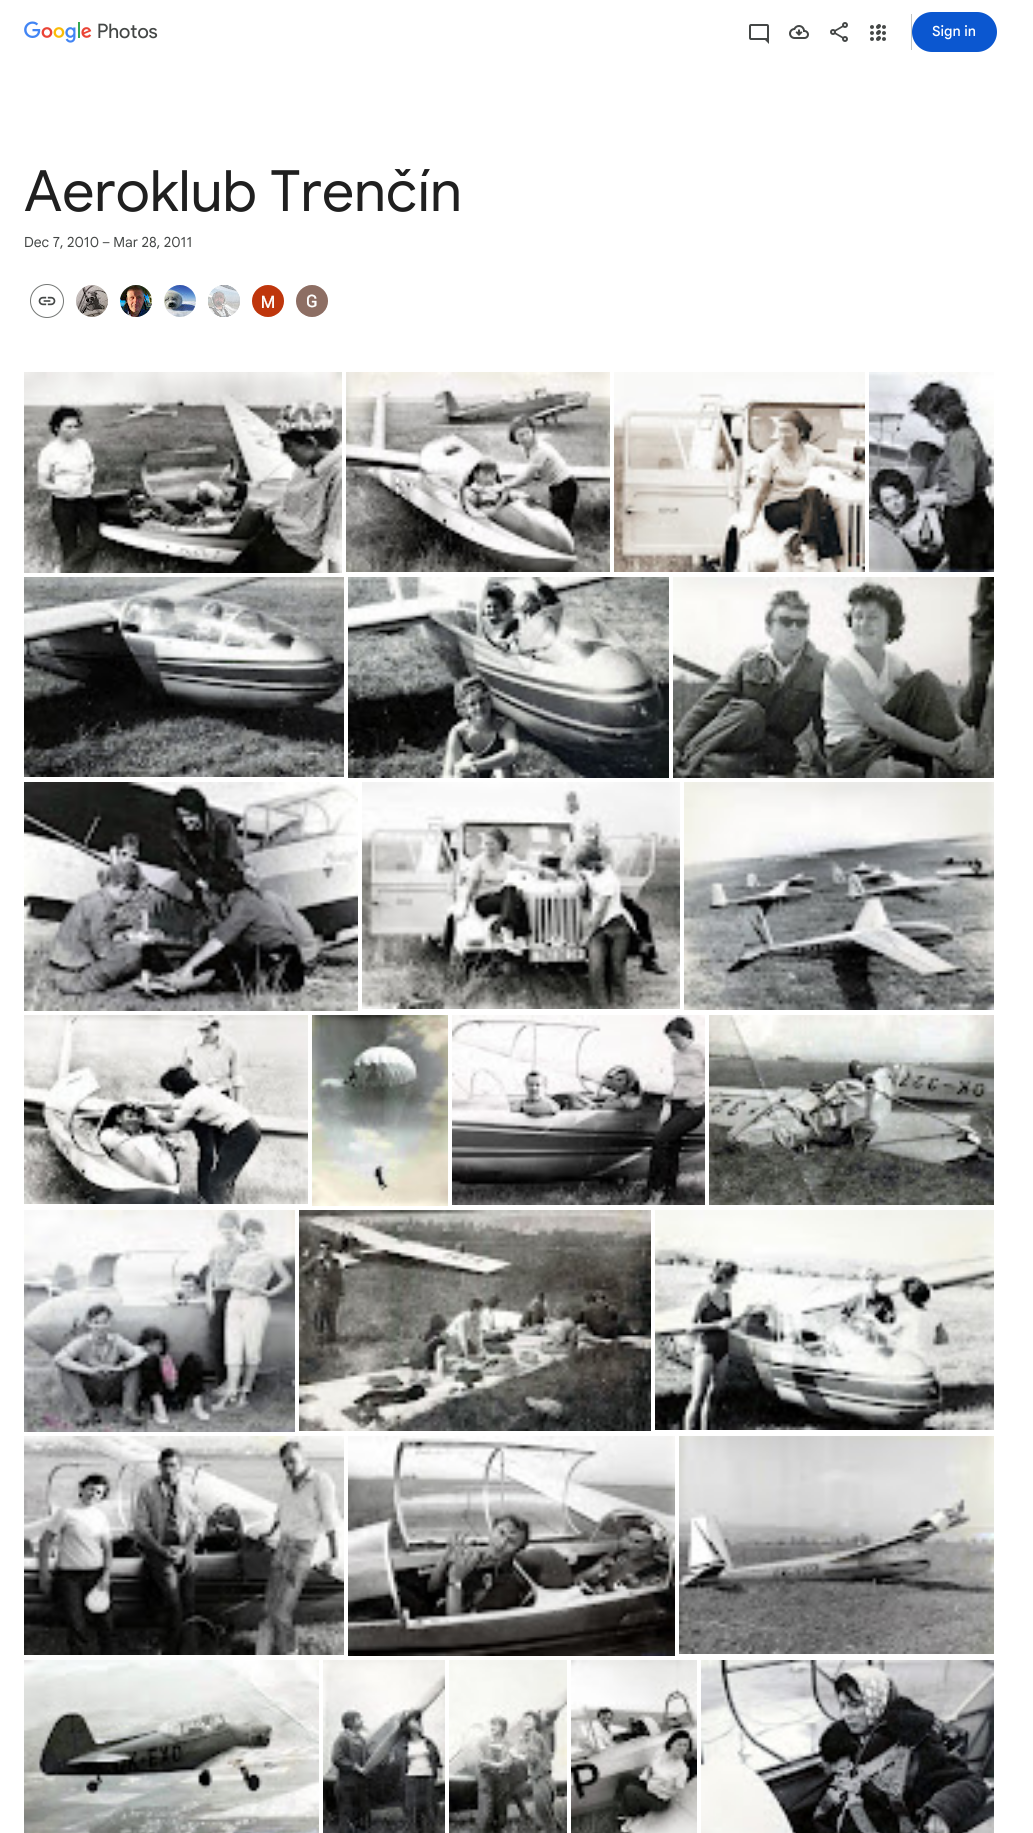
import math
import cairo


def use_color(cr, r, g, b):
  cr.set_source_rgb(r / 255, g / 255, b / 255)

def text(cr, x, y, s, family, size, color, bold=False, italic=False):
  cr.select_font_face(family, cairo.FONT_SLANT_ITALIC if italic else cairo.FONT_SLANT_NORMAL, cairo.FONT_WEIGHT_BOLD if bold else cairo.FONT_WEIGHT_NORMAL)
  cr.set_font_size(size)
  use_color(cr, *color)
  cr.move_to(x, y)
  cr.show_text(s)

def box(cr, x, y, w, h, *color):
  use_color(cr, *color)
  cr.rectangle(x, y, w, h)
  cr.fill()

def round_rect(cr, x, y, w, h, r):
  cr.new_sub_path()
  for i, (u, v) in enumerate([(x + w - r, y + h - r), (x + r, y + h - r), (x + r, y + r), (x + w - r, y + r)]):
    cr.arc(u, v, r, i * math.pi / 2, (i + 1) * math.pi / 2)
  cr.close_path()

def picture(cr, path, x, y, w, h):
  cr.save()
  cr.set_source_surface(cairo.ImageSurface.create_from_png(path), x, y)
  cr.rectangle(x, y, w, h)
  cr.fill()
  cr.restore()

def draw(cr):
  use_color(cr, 255, 255, 255)
  cr.paint()
  picture(cr, "img_01.png", 24, 21, 68, 22)
  picture(cr, "img_02.png", 749, 24, 20, 20)
  picture(cr, "img_03.png", 789, 25, 20, 14)
  picture(cr, "img_04.png", 830, 22, 18, 20)
  picture(cr, "img_05.png", 877, 24, 4, 16)
  box(cr, 911, 14, 1, 36, 196, 199, 197)
  cr.arc(47, 301, 16.5, 0, 2 * math.pi)
  use_color(cr, 116, 119, 117)
  cr.set_line_width(1)
  cr.stroke()
  picture(cr, "img_06.png", 38, 296, 18, 10)
  picture(cr, "img_07.png", 76, 285, 32, 32)
  picture(cr, "img_08.png", 120, 285, 32, 32)
  picture(cr, "img_09.png", 164, 285, 32, 32)
  picture(cr, "img_10.png", 208, 285, 32, 32)
  cr.set_source_rgba(1, 1, 1, 0.62)
  cr.arc(224, 301, 16, 0, 2 * math.pi)
  cr.fill()
  picture(cr, "img_11.png", 252, 285, 32, 32)
  picture(cr, "img_12.png", 296, 285, 32, 32)
  picture(cr, "img_13.png", 24, 372, 318, 201)
  picture(cr, "img_14.png", 346, 372, 264, 200)
  picture(cr, "img_15.png", 614, 372, 251, 200)
  picture(cr, "img_16.png", 869, 372, 125, 200)
  picture(cr, "img_17.png", 24, 577, 320, 200)
  picture(cr, "img_18.png", 348, 577, 321, 201)
  picture(cr, "img_19.png", 673, 577, 321, 201)
  picture(cr, "img_20.png", 24, 782, 334, 229)
  picture(cr, "img_21.png", 362, 782, 318, 227)
  picture(cr, "img_22.png", 684, 782, 310, 228)
  picture(cr, "img_23.png", 24, 1015, 284, 189)
  picture(cr, "img_24.png", 312, 1015, 136, 191)
  picture(cr, "img_25.png", 452, 1015, 253, 190)
  picture(cr, "img_26.png", 709, 1015, 285, 190)
  picture(cr, "img_27.png", 24, 1210, 271, 222)
  picture(cr, "img_28.png", 299, 1210, 352, 221)
  picture(cr, "img_29.png", 655, 1210, 339, 220)
  picture(cr, "img_30.png", 24, 1436, 320, 219)
  picture(cr, "img_31.png", 348, 1436, 327, 220)
  picture(cr, "img_32.png", 679, 1436, 315, 218)
  picture(cr, "img_33.png", 24, 1660, 295, 173)
  picture(cr, "img_34.png", 323, 1660, 122, 173)
  picture(cr, "img_35.png", 449, 1660, 118, 173)
  picture(cr, "img_36.png", 571, 1660, 126, 173)
  picture(cr, "img_37.png", 701, 1660, 293, 173)
  picture(cr, "img_38.png", 870, 25, 16, 16)
  use_color(cr, 11, 87, 208)
  round_rect(cr, 912, 12, 85, 40, 20)
  cr.fill()
  text(cr, 97, 38, "Photos", "Product Sans", 20, (68, 71, 70))
  text(cr, 24, 211, "Aeroklub Trenčín", "Google Sans", 57, (31, 31, 31))
  text(cr, 24, 247, "Dec 7, 2010 – Mar 28, 2011", "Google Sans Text", 14, (68, 71, 70))
  text(cr, 932, 36, "Sign in", "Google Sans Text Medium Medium", 14, (255, 255, 255))


surface = cairo.ImageSurface(cairo.FORMAT_RGB24, 1033, 1833)
cr = cairo.Context(surface)
options = cairo.FontOptions()
options.set_hint_metrics(cairo.HINT_METRICS_OFF)
options.set_hint_style(cairo.HINT_STYLE_NONE)
cr.set_font_options(options)
cr.set_miter_limit(4)
draw(cr)
surface.write_to_png("out.png")
